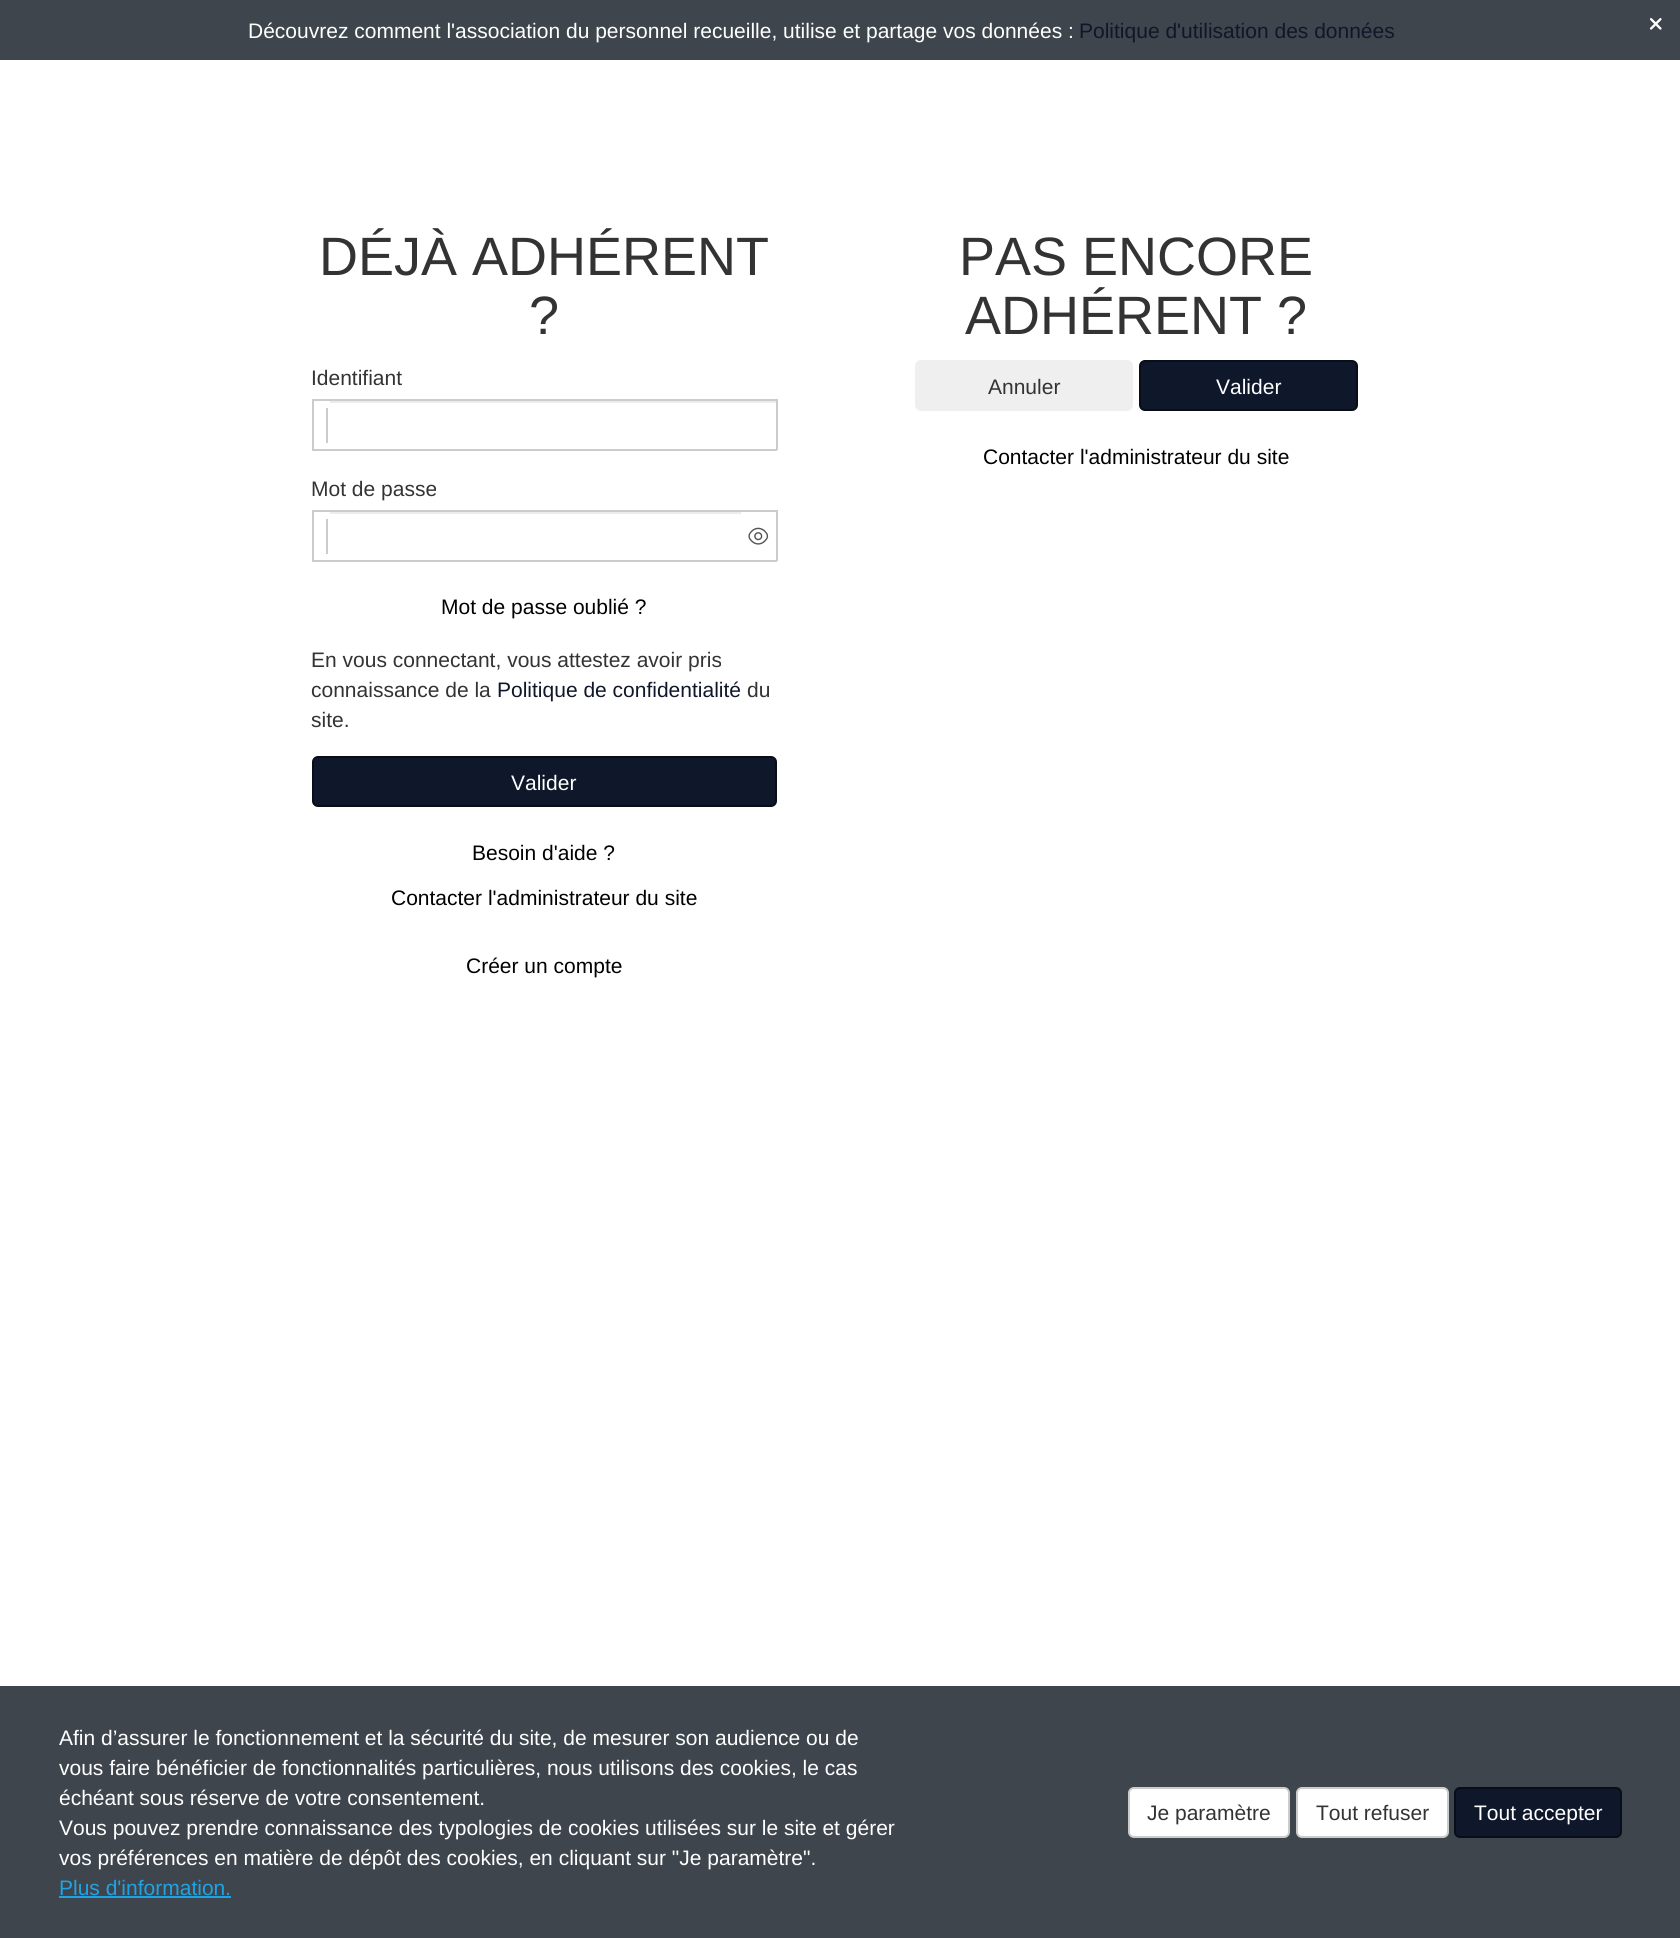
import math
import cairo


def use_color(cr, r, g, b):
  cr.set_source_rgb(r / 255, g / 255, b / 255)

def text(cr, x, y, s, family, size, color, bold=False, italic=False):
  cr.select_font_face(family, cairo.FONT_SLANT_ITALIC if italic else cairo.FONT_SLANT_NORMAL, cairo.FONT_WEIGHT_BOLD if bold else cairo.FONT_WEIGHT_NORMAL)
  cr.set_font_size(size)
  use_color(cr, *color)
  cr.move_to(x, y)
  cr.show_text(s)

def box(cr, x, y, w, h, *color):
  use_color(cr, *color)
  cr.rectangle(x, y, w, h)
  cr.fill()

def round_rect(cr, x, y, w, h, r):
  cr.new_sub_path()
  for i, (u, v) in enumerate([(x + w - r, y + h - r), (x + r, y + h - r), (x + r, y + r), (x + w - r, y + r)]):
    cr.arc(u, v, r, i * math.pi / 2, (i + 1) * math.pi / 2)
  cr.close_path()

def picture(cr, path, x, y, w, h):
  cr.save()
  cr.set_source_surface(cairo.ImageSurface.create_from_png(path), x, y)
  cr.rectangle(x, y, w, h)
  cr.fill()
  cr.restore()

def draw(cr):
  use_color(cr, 255, 255, 255)
  cr.paint()
  box(cr, 0, 0, 1680, 60, 62, 69, 77)
  picture(cr, "img_01.png", 1649, 18, 13, 12)
  box(cr, 312, 399, 465, 2, 204, 204, 204)
  box(cr, 312, 449, 19, 2, 204, 204, 204)
  box(cr, 312, 399, 2, 51, 204, 204, 204)
  box(cr, 326, 408, 2, 35, 204, 204, 204)
  box(cr, 330, 401, 446, 2, 236, 236, 236)
  box(cr, 776, 399, 2, 51, 204, 204, 204)
  box(cr, 330, 449, 447, 2, 204, 204, 204)
  box(cr, 312, 510, 19, 2, 204, 204, 204)
  box(cr, 312, 560, 19, 2, 204, 204, 204)
  box(cr, 312, 510, 2, 51, 204, 204, 204)
  box(cr, 330, 510, 447, 2, 204, 204, 204)
  box(cr, 776, 510, 2, 51, 204, 204, 204)
  box(cr, 330, 560, 447, 2, 204, 204, 204)
  picture(cr, "img_02.png", 748, 527, 21, 18)
  box(cr, 330, 512, 411, 2, 236, 236, 236)
  box(cr, 326, 519, 2, 35, 204, 204, 204)
  use_color(cr, 15, 23, 42)
  round_rect(cr, 313, 757, 463, 49, 5)
  cr.fill_preserve()
  use_color(cr, 8, 13, 23)
  cr.stroke()
  use_color(cr, 239, 239, 239)
  round_rect(cr, 915, 360, 218, 51, 6)
  cr.fill()
  use_color(cr, 15, 23, 42)
  round_rect(cr, 1140, 361, 217, 49, 5)
  cr.fill_preserve()
  use_color(cr, 8, 13, 23)
  cr.stroke()
  box(cr, 0, 1686, 1680, 252, 62, 69, 77)
  box(cr, 59, 1896, 172, 2, 32, 163, 227)
  use_color(cr, 255, 255, 255)
  round_rect(cr, 1129, 1788, 160, 49, 5)
  cr.fill_preserve()
  use_color(cr, 204, 204, 204)
  cr.stroke()
  use_color(cr, 255, 255, 255)
  round_rect(cr, 1297, 1788, 151, 49, 5)
  cr.fill_preserve()
  use_color(cr, 204, 204, 204)
  cr.stroke()
  use_color(cr, 15, 23, 42)
  round_rect(cr, 1455, 1788, 166, 49, 5)
  cr.fill_preserve()
  use_color(cr, 8, 13, 23)
  cr.stroke()
  text(cr, 248, 38, "Découvrez comment l'association du personnel recueille, utilise et partage vos données :", "Liberation Sans", 21, (255, 255, 255))
  text(cr, 1079, 38, "Politique d'utilisation des données", "Liberation Sans", 21, (15, 23, 42))
  text(cr, 319, 275, "DÉJÀ ADHÉRENT", "Liberation Sans", 54, (51, 51, 51))
  text(cr, 529, 334, "?", "Liberation Sans", 54, (51, 51, 51))
  text(cr, 311, 385, "Identifiant", "Liberation Sans", 21, (51, 51, 51))
  text(cr, 311, 496, "Mot de passe", "Liberation Sans", 21, (51, 51, 51))
  text(cr, 441, 614, "Mot de passe oublié ?", "Liberation Sans", 21, (0, 0, 0))
  text(cr, 311, 667, "En vous connectant, vous attestez avoir pris", "Liberation Sans", 21, (51, 51, 51))
  text(cr, 311, 697, "connaissance de la", "Liberation Sans", 21, (51, 51, 51))
  text(cr, 497, 697, "Politique de confidentialité", "Liberation Sans", 21, (15, 23, 42))
  text(cr, 747, 697, "du", "Liberation Sans", 21, (51, 51, 51))
  text(cr, 311, 727, "site.", "Liberation Sans", 21, (51, 51, 51))
  text(cr, 511, 790, "Valider", "Liberation Sans", 21, (255, 255, 255))
  text(cr, 472, 860, "Besoin d'aide ?", "Liberation Sans", 21, (0, 0, 0))
  text(cr, 391, 905, "Contacter l'administrateur du site", "Liberation Sans", 21, (0, 0, 0))
  text(cr, 466, 973, "Créer un compte", "Liberation Sans", 21, (0, 0, 0))
  text(cr, 959, 275, "PAS ENCORE", "Liberation Sans", 54, (51, 51, 51))
  text(cr, 965, 334, "ADHÉRENT ?", "Liberation Sans", 54, (51, 51, 51))
  text(cr, 988, 394, "Annuler", "Liberation Sans", 21, (51, 51, 51))
  text(cr, 1216, 394, "Valider", "Liberation Sans", 21, (255, 255, 255))
  text(cr, 983, 464, "Contacter l'administrateur du site", "Liberation Sans", 21, (0, 0, 0))
  text(cr, 59, 1745, "Afin d’assurer le fonctionnement et la sécurité du site, de mesurer son audience ou de", "Liberation Sans", 21, (255, 255, 255))
  text(cr, 59, 1775, "vous faire bénéficier de fonctionnalités particulières, nous utilisons des cookies, le cas", "Liberation Sans", 21, (255, 255, 255))
  text(cr, 59, 1805, "échéant sous réserve de votre consentement.", "Liberation Sans", 21, (255, 255, 255))
  text(cr, 59, 1835, "Vous pouvez prendre connaissance des typologies de cookies utilisées sur le site et gérer", "Liberation Sans", 21, (255, 255, 255))
  text(cr, 59, 1865, "vos préférences en matière de dépôt des cookies, en cliquant sur \"Je paramètre\".", "Liberation Sans", 21, (255, 255, 255))
  text(cr, 59, 1895, "Plus d'information.", "Liberation Sans", 21, (32, 163, 227))
  text(cr, 1147, 1820, "Je paramètre", "Liberation Sans", 21, (51, 51, 51))
  text(cr, 1316, 1820, "Tout refuser", "Liberation Sans", 21, (51, 51, 51))
  text(cr, 1474, 1820, "Tout accepter", "Liberation Sans", 21, (255, 255, 255))


surface = cairo.ImageSurface(cairo.FORMAT_RGB24, 1680, 1938)
cr = cairo.Context(surface)
options = cairo.FontOptions()
options.set_hint_metrics(cairo.HINT_METRICS_OFF)
options.set_hint_style(cairo.HINT_STYLE_NONE)
cr.set_font_options(options)
cr.set_miter_limit(4)
draw(cr)
surface.write_to_png("out.png")
